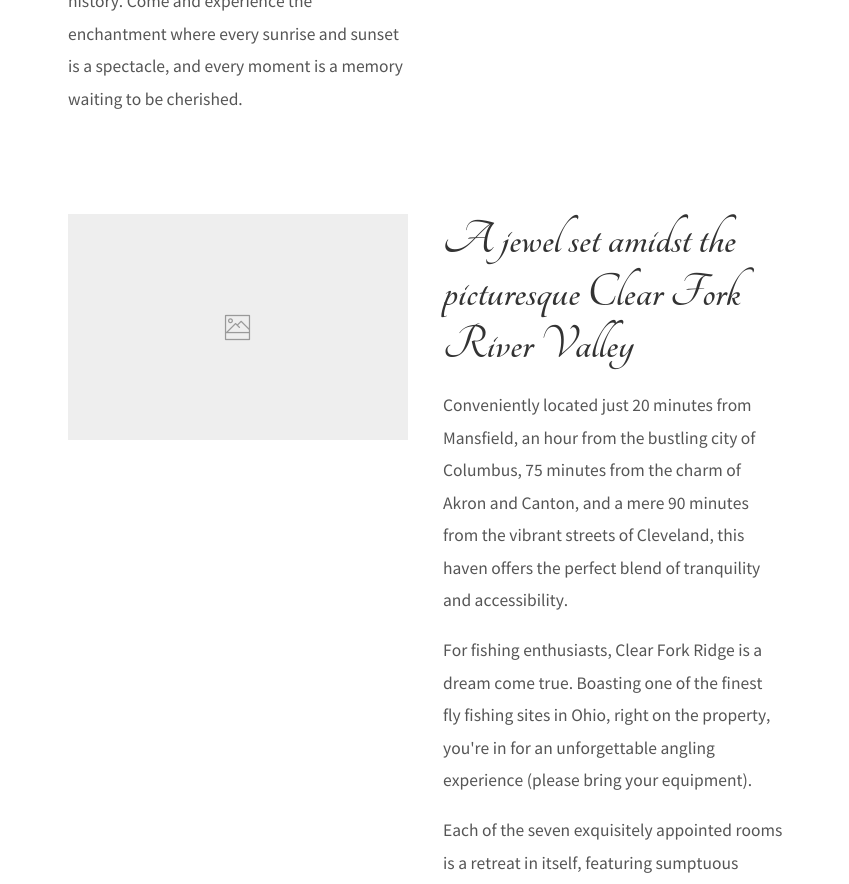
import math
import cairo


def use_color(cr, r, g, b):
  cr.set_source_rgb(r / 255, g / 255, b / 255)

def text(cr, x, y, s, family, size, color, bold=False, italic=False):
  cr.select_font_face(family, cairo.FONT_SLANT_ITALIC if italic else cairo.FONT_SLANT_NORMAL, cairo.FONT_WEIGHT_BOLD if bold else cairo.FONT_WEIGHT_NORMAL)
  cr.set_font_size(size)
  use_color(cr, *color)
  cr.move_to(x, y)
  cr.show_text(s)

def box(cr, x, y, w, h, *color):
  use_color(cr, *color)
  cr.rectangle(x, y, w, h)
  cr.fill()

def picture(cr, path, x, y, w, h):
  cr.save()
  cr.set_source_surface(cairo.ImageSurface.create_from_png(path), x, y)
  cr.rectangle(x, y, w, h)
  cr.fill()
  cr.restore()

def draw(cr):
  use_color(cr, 255, 255, 255)
  cr.paint()
  box(cr, 68, 214, 340, 226, 238, 238, 238)
  picture(cr, "img_01.png", 224, 314, 27, 27)
  text(cr, 68, 7, "history. Come and experience the", "Source Sans Pro", 17.5, (85, 85, 85))
  text(cr, 68, 40, "enchantment where every sunrise and sunset", "Source Sans Pro", 17.5, (85, 85, 85))
  text(cr, 68, 72, "is a spectacle, and every moment is a memory", "Source Sans Pro", 17.5, (85, 85, 85))
  text(cr, 68, 105, "waiting to be cherished.", "Source Sans Pro", 17.5, (85, 85, 85))
  text(cr, 443, 252, "A jewel set amidst the", "Tangerine", 50, (51, 51, 51), bold=True)
  text(cr, 443, 305, "picturesque Clear Fork", "Tangerine", 50, (51, 51, 51), bold=True)
  text(cr, 443, 357, "River Valley", "Tangerine", 50, (51, 51, 51), bold=True)
  text(cr, 443, 411, "Conveniently located just 20 minutes from", "Source Sans Pro", 17.5, (85, 85, 85))
  text(cr, 443, 444, "Mansfield, an hour from the bustling city of", "Source Sans Pro", 17.5, (85, 85, 85))
  text(cr, 443, 476, "Columbus, 75 minutes from the charm of", "Source Sans Pro", 17.5, (85, 85, 85))
  text(cr, 443, 509, "Akron and Canton, and a mere 90 minutes", "Source Sans Pro", 17.5, (85, 85, 85))
  text(cr, 443, 541, "from the vibrant streets of Cleveland, this", "Source Sans Pro", 17.5, (85, 85, 85))
  text(cr, 443, 574, "haven offers the perfect blend of tranquility", "Source Sans Pro", 17.5, (85, 85, 85))
  text(cr, 443, 606, "and accessibility.", "Source Sans Pro", 17.5, (85, 85, 85))
  text(cr, 443, 656, "For fishing enthusiasts, Clear Fork Ridge is a", "Source Sans Pro", 17.5, (85, 85, 85))
  text(cr, 443, 689, "dream come true. Boasting one of the finest", "Source Sans Pro", 17.5, (85, 85, 85))
  text(cr, 443, 721, "fly fishing sites in Ohio, right on the property,", "Source Sans Pro", 17.5, (85, 85, 85))
  text(cr, 443, 754, "you're in for an unforgettable angling", "Source Sans Pro", 17.5, (85, 85, 85))
  text(cr, 443, 786, "experience (please bring your equipment).", "Source Sans Pro", 17.5, (85, 85, 85))
  text(cr, 443, 836, "Each of the seven exquisitely appointed rooms", "Source Sans Pro", 17.5, (85, 85, 85))
  text(cr, 443, 869, "is a retreat in itself, featuring sumptuous", "Source Sans Pro", 17.5, (85, 85, 85))


surface = cairo.ImageSurface(cairo.FORMAT_RGB24, 849, 884)
cr = cairo.Context(surface)
options = cairo.FontOptions()
options.set_hint_metrics(cairo.HINT_METRICS_OFF)
options.set_hint_style(cairo.HINT_STYLE_NONE)
cr.set_font_options(options)
cr.set_miter_limit(4)
draw(cr)
surface.write_to_png("out.png")
